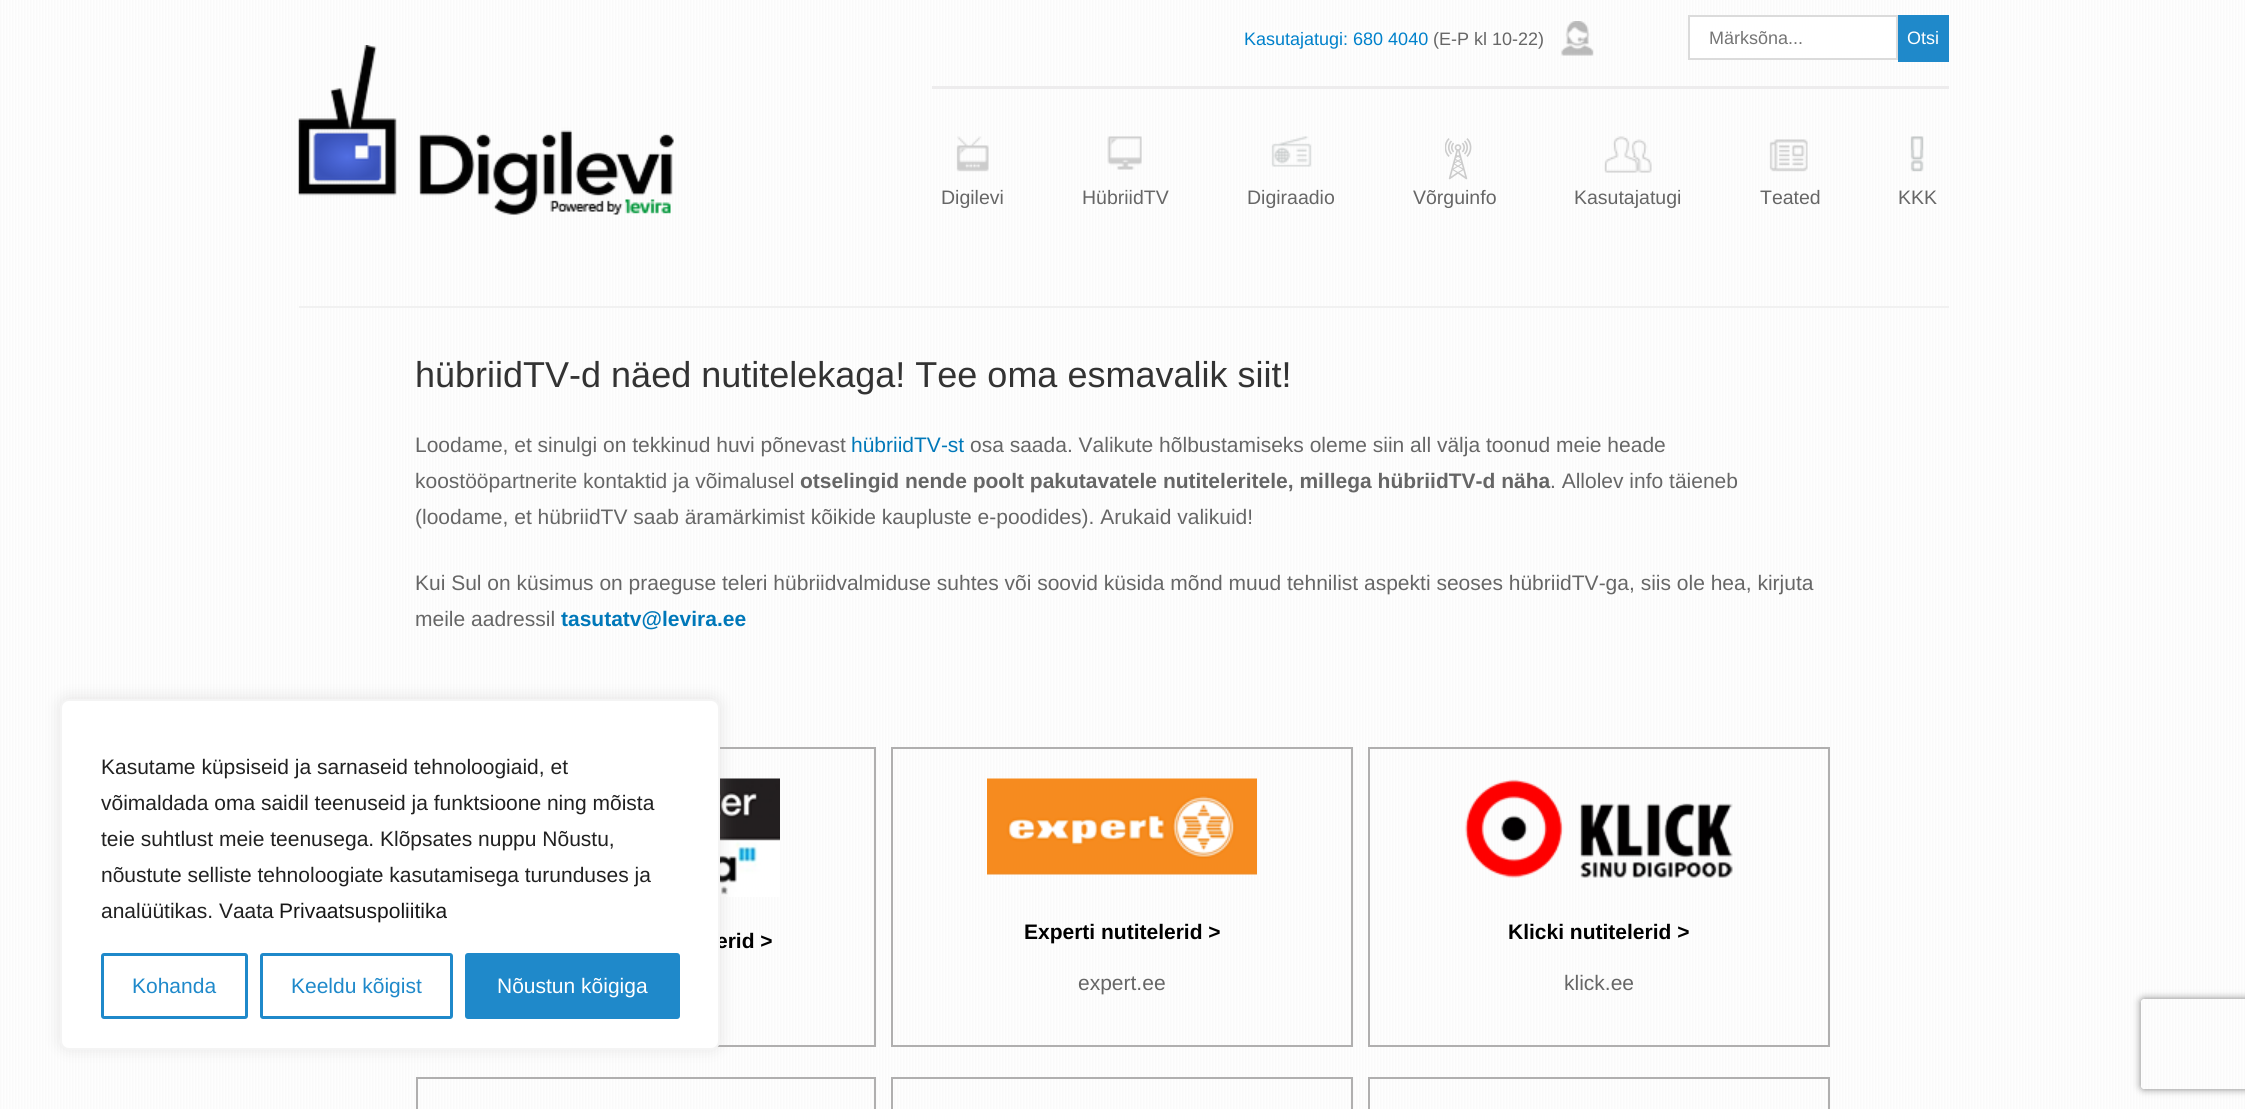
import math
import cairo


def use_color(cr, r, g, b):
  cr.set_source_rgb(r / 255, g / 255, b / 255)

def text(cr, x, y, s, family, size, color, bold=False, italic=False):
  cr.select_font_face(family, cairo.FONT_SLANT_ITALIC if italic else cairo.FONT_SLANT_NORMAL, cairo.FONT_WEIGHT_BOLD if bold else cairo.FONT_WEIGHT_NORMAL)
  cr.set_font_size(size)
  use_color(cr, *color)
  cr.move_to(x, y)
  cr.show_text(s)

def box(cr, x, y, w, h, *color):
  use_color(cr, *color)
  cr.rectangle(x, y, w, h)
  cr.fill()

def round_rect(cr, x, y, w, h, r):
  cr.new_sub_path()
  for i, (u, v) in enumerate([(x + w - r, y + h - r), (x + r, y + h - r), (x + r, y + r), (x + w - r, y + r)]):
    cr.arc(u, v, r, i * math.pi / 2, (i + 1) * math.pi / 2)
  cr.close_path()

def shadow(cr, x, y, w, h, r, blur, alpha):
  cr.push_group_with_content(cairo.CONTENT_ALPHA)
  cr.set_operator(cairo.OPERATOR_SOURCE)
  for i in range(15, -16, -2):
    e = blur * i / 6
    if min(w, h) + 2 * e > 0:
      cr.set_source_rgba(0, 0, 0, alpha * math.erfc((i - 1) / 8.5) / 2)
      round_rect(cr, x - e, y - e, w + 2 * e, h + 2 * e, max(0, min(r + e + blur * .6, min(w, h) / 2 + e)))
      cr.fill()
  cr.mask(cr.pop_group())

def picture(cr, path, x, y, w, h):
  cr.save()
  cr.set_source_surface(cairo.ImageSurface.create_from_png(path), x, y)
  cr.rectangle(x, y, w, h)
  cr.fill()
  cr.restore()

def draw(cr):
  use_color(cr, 255, 255, 255)
  cr.paint()
  picture(cr, "img_01.png", 0, 0, 2245, 1109)
  cr.rectangle(417, 748, 458, 298)
  use_color(cr, 176, 175, 175)
  cr.stroke()
  picture(cr, "img_11.png", 720, 778, 60, 119)
  use_color(cr, 172, 171, 171)
  shadow(cr, 60, 698, 660, 351, 9, 7.5, 0.3)
  picture(cr, "img_02.png", 298, 45, 376, 170)
  picture(cr, "img_03.png", 1561, 21, 33, 35)
  box(cr, 1690, 17, 205, 41, 255, 255, 255)
  cr.rectangle(1689, 16, 208, 43)
  use_color(cr, 219, 219, 219)
  cr.stroke()
  box(cr, 1898, 15, 51, 47, 31, 137, 202)
  box(cr, 932, 86, 1017, 3, 237, 236, 237)
  picture(cr, "img_04.png", 956, 136, 33, 36)
  picture(cr, "img_05.png", 1107, 136, 35, 34)
  picture(cr, "img_06.png", 1271, 136, 41, 31)
  picture(cr, "img_07.png", 1445, 138, 27, 42)
  picture(cr, "img_08.png", 1604, 136, 48, 37)
  picture(cr, "img_09.png", 1769, 139, 39, 33)
  picture(cr, "img_10.png", 1910, 136, 14, 36)
  box(cr, 299, 306, 1650, 2, 241, 241, 241)
  cr.rectangle(892, 748, 460, 298)
  use_color(cr, 176, 175, 175)
  cr.stroke()
  picture(cr, "img_12.png", 987, 778, 270, 97)
  cr.rectangle(1369, 748, 460, 298)
  cr.stroke()
  picture(cr, "img_13.png", 1465, 779, 268, 99)
  cr.rectangle(417, 1078, 458, 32)
  cr.stroke()
  cr.rectangle(892, 1078, 460, 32)
  cr.stroke()
  cr.rectangle(1369, 1078, 460, 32)
  cr.stroke()
  cr.save()
  cr.set_fill_rule(cairo.FILL_RULE_EVEN_ODD)
  cr.new_path()
  cr.move_to(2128, 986)
  cr.line_to(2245, 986)
  cr.line_to(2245, 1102)
  cr.line_to(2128, 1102)
  cr.close_path()
  cr.move_to(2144, 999)
  cr.line_to(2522, 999)
  cr.curve_to(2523.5, 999, 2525, 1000.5, 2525, 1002)
  cr.line_to(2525, 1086)
  cr.curve_to(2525, 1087.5, 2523.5, 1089, 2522, 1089)
  cr.line_to(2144, 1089)
  cr.curve_to(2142.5, 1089, 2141, 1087.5, 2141, 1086)
  cr.line_to(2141, 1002)
  cr.curve_to(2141, 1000.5, 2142.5, 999, 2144, 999)
  cr.close_path()
  cr.clip()
  use_color(cr, 128, 128, 128)
  shadow(cr, 2141, 999, 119, 90, 3, 4, 1)
  cr.restore()
  text(cr, 1244, 45, "Kasutajatugi: 680 4040", "Liberation Sans", 18, (0, 129, 203))
  text(cr, 1433, 45, "(E-P kl 10-22)", "Liberation Sans", 18, (102, 102, 102))
  text(cr, 1709, 44, "Märksõna...", "Liberation Sans", 18, (117, 117, 117))
  text(cr, 1907, 44, "Otsi", "Liberation Sans", 18, (255, 255, 255))
  text(cr, 941, 204, "Digilevi", "Liberation Sans", 19.5, (102, 102, 102))
  text(cr, 1082, 204, "HübriidTV", "Liberation Sans", 19.5, (102, 102, 102))
  text(cr, 1247, 204, "Digiraadio", "Liberation Sans", 19.5, (102, 102, 102))
  text(cr, 1413, 204, "Võrguinfo", "Liberation Sans", 19.5, (102, 102, 102))
  text(cr, 1574, 204, "Kasutajatugi", "Liberation Sans", 19.5, (102, 102, 102))
  text(cr, 1760, 204, "Teated", "Liberation Sans", 19.5, (102, 102, 102))
  text(cr, 1898, 204, "KKK", "Liberation Sans", 19.5, (102, 102, 102))
  text(cr, 415, 387, "hübriidTV-d näed nutitelekaga! Tee oma esmavalik siit!", "Liberation Sans", 36, (51, 51, 51))
  text(cr, 415, 452, "Loodame, et sinulgi on tekkinud huvi põnevast", "Liberation Sans", 21, (102, 102, 102))
  text(cr, 851, 452, "hübriidTV-st", "Liberation Sans", 21, (0, 120, 185))
  text(cr, 970, 452, "osa saada. Valikute hõlbustamiseks oleme siin all välja toonud meie heade", "Liberation Sans", 21, (102, 102, 102))
  text(cr, 415, 488, "koostööpartnerite kontaktid ja võimalusel", "Liberation Sans", 21, (102, 102, 102))
  text(cr, 800, 488, "otselingid nende poolt pakutavatele nutiteleritele, millega hübriidTV-d näha", "Liberation Sans", 21, (102, 102, 102), bold=True)
  text(cr, 1550, 488, ". Allolev info täieneb", "Liberation Sans", 21, (102, 102, 102))
  text(cr, 415, 524, "(loodame, et hübriidTV saab äramärkimist kõikide kaupluste e-poodides). Arukaid valikuid!", "Liberation Sans", 21, (102, 102, 102))
  text(cr, 415, 590, "Kui Sul on küsimus on praeguse teleri hübriidvalmiduse suhtes või soovid küsida mõnd muud tehnilist aspekti seoses hübriidTV-ga, siis ole hea, kirjuta", "Liberation Sans", 21, (102, 102, 102))
  text(cr, 415, 626, "meile aadressil", "Liberation Sans", 21, (102, 102, 102))
  text(cr, 561, 626, "tasutatv@levira.ee", "Liberation Sans", 21, (0, 120, 185), bold=True)
  text(cr, 716, 948, "erid >", "Liberation Sans", 21, (0, 0, 0), bold=True)
  use_color(cr, 255, 255, 255)
  round_rect(cr, 61, 700, 658, 349, 8)
  cr.fill_preserve()
  use_color(cr, 244, 244, 244)
  cr.stroke()
  use_color(cr, 31, 137, 202)
  round_rect(cr, 466.5, 954.5, 212, 63, 1.5)
  cr.fill_preserve()
  cr.set_line_width(3)
  cr.stroke()
  text(cr, 497, 993, "Nõustun kõigiga", "Liberation Sans", 21, (255, 255, 255))
  round_rect(cr, 261.5, 954.5, 190, 63, 1.5)
  use_color(cr, 31, 137, 202)
  cr.stroke()
  text(cr, 291, 993, "Keeldu kõigist", "Liberation Sans", 21, (31, 137, 202))
  round_rect(cr, 102.5, 954.5, 144, 63, 1.5)
  cr.stroke()
  text(cr, 132, 993, "Kohanda", "Liberation Sans", 21, (31, 137, 202))
  text(cr, 279, 918, "Privaatsuspoliitika", "Liberation Sans", 21, (23, 23, 23))
  text(cr, 101, 918, "analüütikas. Vaata", "Liberation Sans", 21, (33, 33, 33))
  text(cr, 101, 882, "nõustute selliste tehnoloogiate kasutamisega turunduses ja", "Liberation Sans", 21, (33, 33, 33))
  text(cr, 101, 846, "teie suhtlust meie teenusega. Klõpsates nuppu Nõustu,", "Liberation Sans", 21, (33, 33, 33))
  text(cr, 101, 810, "võimaldada oma saidil teenuseid ja funktsioone ning mõista", "Liberation Sans", 21, (33, 33, 33))
  text(cr, 101, 774, "Kasutame küpsiseid ja sarnaseid tehnoloogiaid, et", "Liberation Sans", 21, (33, 33, 33))
  text(cr, 1024, 939, "Experti nutitelerid >", "Liberation Sans", 21, (0, 0, 0), bold=True)
  text(cr, 1078, 990, "expert.ee", "Liberation Sans", 21, (102, 102, 102))
  text(cr, 1508, 939, "Klicki nutitelerid >", "Liberation Sans", 21, (0, 0, 0), bold=True)
  text(cr, 1564, 990, "klick.ee", "Liberation Sans", 21, (102, 102, 102))


surface = cairo.ImageSurface(cairo.FORMAT_RGB24, 2245, 1109)
cr = cairo.Context(surface)
options = cairo.FontOptions()
options.set_hint_metrics(cairo.HINT_METRICS_OFF)
options.set_hint_style(cairo.HINT_STYLE_NONE)
cr.set_font_options(options)
cr.set_miter_limit(4)
draw(cr)
surface.write_to_png("out.png")
